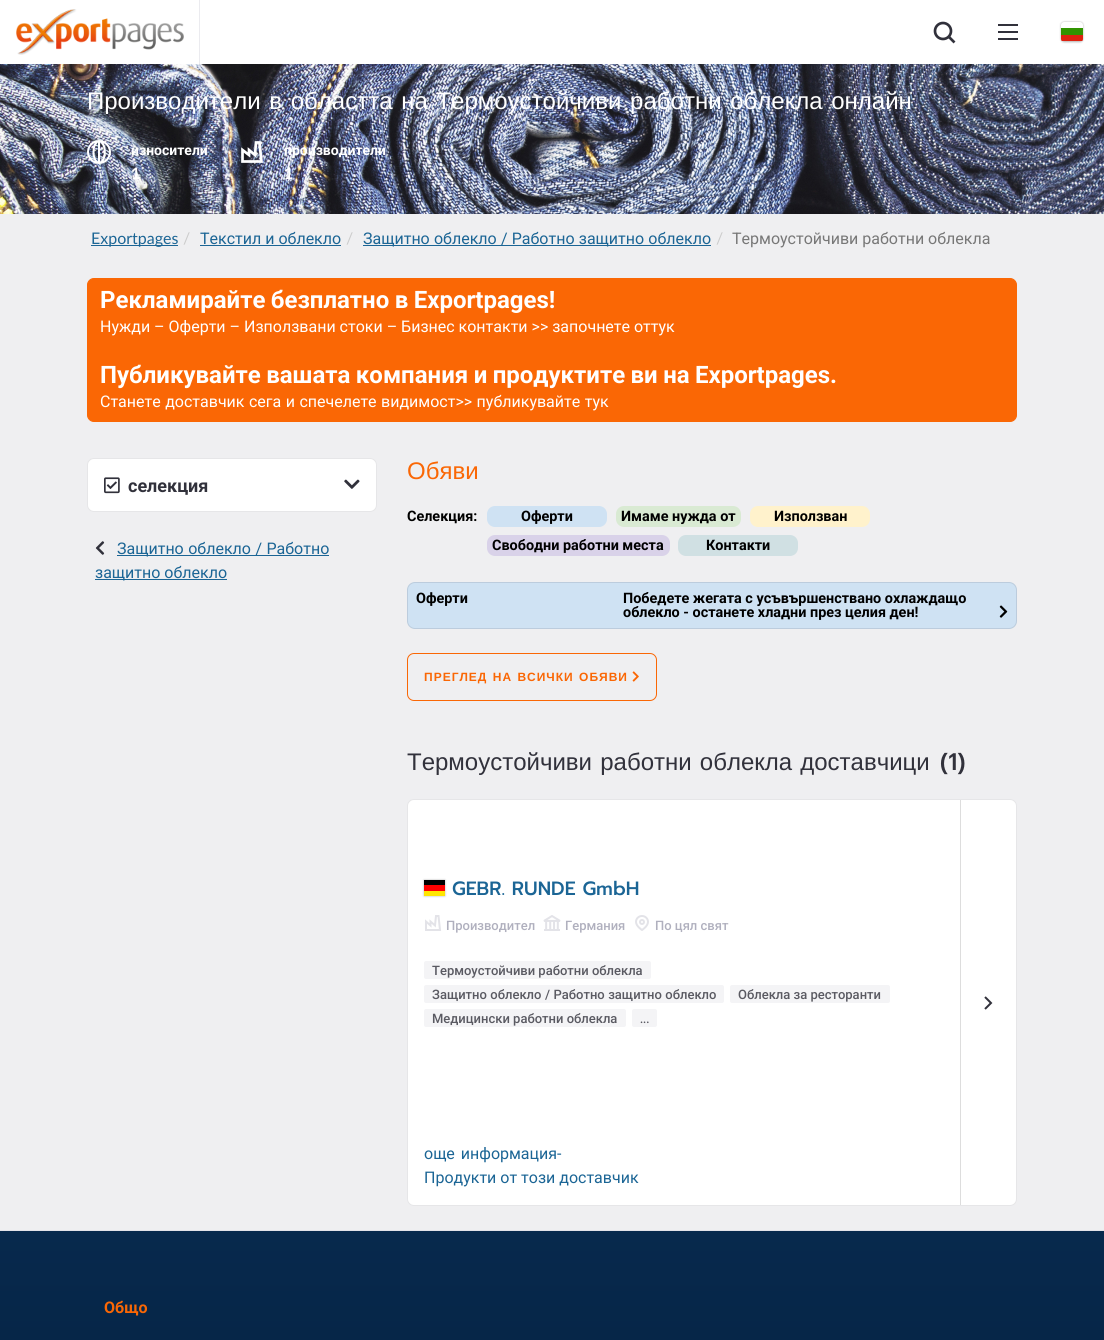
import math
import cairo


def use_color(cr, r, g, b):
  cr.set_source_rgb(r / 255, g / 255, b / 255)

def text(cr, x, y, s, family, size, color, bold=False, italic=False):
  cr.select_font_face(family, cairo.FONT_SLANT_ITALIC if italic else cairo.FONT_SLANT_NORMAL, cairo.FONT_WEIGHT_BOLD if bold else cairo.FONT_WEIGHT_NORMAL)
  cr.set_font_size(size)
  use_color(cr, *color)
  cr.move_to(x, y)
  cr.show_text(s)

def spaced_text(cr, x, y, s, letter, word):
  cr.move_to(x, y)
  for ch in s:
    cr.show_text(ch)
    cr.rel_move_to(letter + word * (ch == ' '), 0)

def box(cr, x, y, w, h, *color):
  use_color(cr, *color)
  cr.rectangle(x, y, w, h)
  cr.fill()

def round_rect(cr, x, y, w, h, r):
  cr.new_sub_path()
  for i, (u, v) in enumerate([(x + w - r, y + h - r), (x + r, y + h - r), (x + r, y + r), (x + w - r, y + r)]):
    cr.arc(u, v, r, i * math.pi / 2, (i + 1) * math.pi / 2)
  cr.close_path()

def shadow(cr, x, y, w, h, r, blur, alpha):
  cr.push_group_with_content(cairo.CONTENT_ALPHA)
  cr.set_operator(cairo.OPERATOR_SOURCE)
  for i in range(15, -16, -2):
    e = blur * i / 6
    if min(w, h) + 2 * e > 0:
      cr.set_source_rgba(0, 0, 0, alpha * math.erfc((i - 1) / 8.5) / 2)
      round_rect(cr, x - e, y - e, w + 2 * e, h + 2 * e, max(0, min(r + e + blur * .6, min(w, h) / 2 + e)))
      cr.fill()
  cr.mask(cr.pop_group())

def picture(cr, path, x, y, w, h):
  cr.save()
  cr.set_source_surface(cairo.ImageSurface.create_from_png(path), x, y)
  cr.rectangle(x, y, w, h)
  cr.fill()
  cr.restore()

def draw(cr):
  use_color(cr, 255, 255, 255)
  cr.paint()
  picture(cr, "img_01.png", 16, 9, 168, 46)
  box(cr, 199, 0, 1, 64, 235, 235, 239)
  cr.arc(943, 31, 8, 0, 2 * math.pi)
  use_color(cr, 49, 49, 59)
  cr.set_line_width(2.7)
  cr.stroke()
  cr.new_path()
  cr.move_to(948.5, 36.5)
  cr.line_to(954.5, 42.5)
  cr.stroke()
  box(cr, 998, 38, 20, 2, 49, 49, 59)
  box(cr, 998, 31, 20, 2, 49, 49, 59)
  box(cr, 998, 24, 20, 2, 49, 49, 59)
  use_color(cr, 0, 0, 0)
  shadow(cr, 1061, 22, 22, 20, 3, 1, 0.3)
  cr.save()
  round_rect(cr, 1061, 22, 22, 20, 3)
  cr.clip()
  box(cr, 1061, 35, 22, 6, 222, 33, 16)
  cr.restore()
  use_color(cr, 255, 255, 255)
  cr.new_path()
  cr.move_to(1064, 22)
  cr.line_to(1080, 22)
  cr.curve_to(1081.5, 22, 1083, 23.5, 1083, 25)
  cr.line_to(1083, 28)
  cr.line_to(1061, 28)
  cr.line_to(1061, 25)
  cr.curve_to(1061, 23.5, 1062.5, 22, 1064, 22)
  cr.close_path()
  cr.fill()
  box(cr, 1061, 28, 22, 7, 49, 148, 0)
  picture(cr, "img_02.png", 0, 64, 1104, 150)
  picture(cr, "img_03.png", 87, 140, 24, 24)
  cr.new_path()
  cr.move_to(261.5, 161.5)
  cr.line_to(259.5, 142.5)
  cr.line_to(256, 142.5)
  cr.line_to(255, 155)
  cr.line_to(249, 150)
  cr.line_to(249, 155)
  cr.line_to(242.5, 150)
  cr.line_to(242.5, 161.5)
  cr.close_path()
  use_color(cr, 255, 255, 255)
  cr.stroke()
  box(cr, 0, 214, 1104, 1016, 239, 239, 241)
  box(cr, 91, 245, 87, 1, 27, 101, 149)
  box(cr, 200, 245, 141, 1, 27, 101, 149)
  box(cr, 363, 245, 348, 1, 27, 101, 149)
  use_color(cr, 250, 103, 5)
  round_rect(cr, 87.5, 278.5, 929, 143, 6.5)
  cr.fill_preserve()
  cr.set_line_width(1)
  cr.stroke()
  use_color(cr, 255, 255, 255)
  round_rect(cr, 87, 458, 290, 54, 7)
  cr.fill()
  round_rect(cr, 87.5, 458.5, 289, 53, 6.5)
  cr.set_source_rgba(0.192, 0.192, 0.231, 0.12)
  cr.stroke()
  picture(cr, "img_04.png", 104, 477, 16, 17)
  picture(cr, "img_05.png", 344, 479, 16, 10)
  picture(cr, "img_06.png", 95, 541, 10, 14)
  box(cr, 117, 555, 212, 1, 27, 101, 149)
  box(cr, 95, 579, 132, 1, 27, 101, 149)
  use_color(cr, 207, 226, 243)
  round_rect(cr, 487, 506, 120, 21, 8)
  cr.fill()
  use_color(cr, 217, 234, 211)
  round_rect(cr, 616, 506, 125, 21, 8)
  cr.fill()
  use_color(cr, 255, 242, 204)
  round_rect(cr, 750, 506, 120, 21, 8)
  cr.fill()
  use_color(cr, 217, 210, 233)
  round_rect(cr, 487, 535, 183, 21, 8)
  cr.fill()
  use_color(cr, 208, 224, 227)
  round_rect(cr, 678, 535, 120, 21, 8)
  cr.fill()
  use_color(cr, 207, 226, 243)
  round_rect(cr, 407, 582, 610, 47, 8)
  cr.fill()
  round_rect(cr, 407.5, 582.5, 609, 46, 7.5)
  cr.set_source_rgba(0.192, 0.192, 0.231, 0.12)
  cr.stroke()
  picture(cr, "img_07.png", 999, 605, 9, 13)
  round_rect(cr, 407.5, 653.5, 249, 47, 6.5)
  use_color(cr, 250, 103, 5)
  cr.stroke()
  picture(cr, "img_08.png", 632, 671, 7, 11)
  use_color(cr, 255, 255, 255)
  round_rect(cr, 407, 799, 610, 407, 7)
  cr.fill()
  round_rect(cr, 407.5, 799.5, 609, 406, 6.5)
  cr.set_source_rgba(0.192, 0.192, 0.231, 0.12)
  cr.stroke()
  use_color(cr, 0, 0, 0)
  shadow(cr, 424, 880, 21, 16, 0, 1, 0.3)
  box(cr, 424, 891, 21, 5, 255, 230, 0)
  box(cr, 424, 880, 21, 5, 0, 0, 0)
  box(cr, 424, 885, 21, 6, 255, 0, 0)
  box(cr, 960, 800, 1, 405, 221, 221, 221)
  cr.new_path()
  cr.move_to(985, 1009)
  cr.line_to(991, 1003)
  cr.line_to(985, 997)
  use_color(cr, 49, 49, 59)
  cr.set_line_width(2)
  cr.stroke()
  cr.new_path()
  cr.move_to(440, 930)
  cr.line_to(438.5, 916)
  cr.line_to(436, 916)
  cr.line_to(435, 925.5)
  cr.line_to(430.5, 921.5)
  cr.line_to(430.5, 925.5)
  cr.line_to(426, 921.5)
  cr.line_to(426, 930)
  cr.close_path()
  use_color(cr, 227, 227, 232)
  cr.stroke()
  picture(cr, "img_09.png", 543, 915, 18, 16)
  picture(cr, "img_10.png", 635, 915, 14, 16)
  use_color(cr, 244, 244, 246)
  round_rect(cr, 424, 961, 227, 18, 2)
  cr.fill()
  round_rect(cr, 424, 985, 300, 18, 2)
  cr.fill()
  round_rect(cr, 730, 985, 160, 18, 2)
  cr.fill()
  round_rect(cr, 424, 1009, 202, 18, 2)
  cr.fill()
  round_rect(cr, 632, 1009, 25, 18, 2)
  cr.fill()
  gradient = cairo.LinearGradient(552, 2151, 552, 1231)
  gradient.add_color_stop_rgba(0, 0.004, 0.059, 0.133, 1)
  gradient.add_color_stop_rgba(1, 0.027, 0.161, 0.302, 1)
  cr.set_source(gradient)
  cr.rectangle(0, 1231, 1104, 109)
  cr.fill()
  box(cr, 0, 1230, 1104, 1, 227, 227, 232)
  cr.select_font_face("Liberation Sans")
  cr.set_font_size(24)
  use_color(cr, 255, 255, 255)
  spaced_text(cr, 87, 109, "Производители в областта на Термоустойчиви работни облекла онлайн", 0, 2)
  text(cr, 131, 155, "износители", "Roboto", 14, (255, 255, 255), bold=True)
  text(cr, 131, 179, "1", "Lato", 16, (255, 255, 255), bold=True)
  text(cr, 284, 155, "производители", "Roboto", 14, (255, 255, 255), bold=True)
  text(cr, 284, 179, "1", "Lato", 16, (255, 255, 255), bold=True)
  text(cr, 91, 244, "Exportpages", "Lato", 16, (27, 101, 149))
  text(cr, 183, 244, "/", "Lato", 16, (204, 204, 204))
  text(cr, 200, 244, "Текстил и облекло", "Roboto", 16, (27, 101, 149))
  text(cr, 346, 244, "/", "Lato", 16, (204, 204, 204))
  cr.select_font_face("Roboto")
  use_color(cr, 27, 101, 149)
  spaced_text(cr, 363, 244, "Защитно облекло / Работно защитно облекло", 0, 0.25)
  text(cr, 716, 244, "/", "Lato", 16, (204, 204, 204))
  text(cr, 732, 244, "Термоустойчиви работни облекла", "Roboto", 16, (119, 119, 119))
  cr.select_font_face("Roboto", cairo.FONT_SLANT_NORMAL, cairo.FONT_WEIGHT_BOLD)
  cr.set_font_size(24)
  use_color(cr, 255, 255, 255)
  spaced_text(cr, 100, 308, "Рекламирайте безплатно в Exportpages!", 0, -0.5)
  text(cr, 100, 332, "Нужди – Оферти – Използвани стоки – Бизнес контакти >> започнете оттук", "Roboto", 16, (255, 255, 255))
  cr.select_font_face("Roboto", cairo.FONT_SLANT_NORMAL, cairo.FONT_WEIGHT_BOLD)
  cr.set_font_size(24)
  spaced_text(cr, 100, 383, "Публикувайте вашата компания и продуктите ви на Exportpages.", 0, -0.5)
  cr.select_font_face("Roboto")
  cr.set_font_size(16)
  spaced_text(cr, 100, 407, "Станете доставчик сега и спечелете видимост>> публикувайте тук", 0, 0.5)
  text(cr, 128, 492, "селекция", "Roboto", 18, (49, 49, 59), bold=True)
  cr.select_font_face("Roboto")
  cr.set_font_size(16)
  use_color(cr, 27, 101, 149)
  spaced_text(cr, 117, 554, "Защитно облекло / Работно", 0, 0.5)
  text(cr, 95, 578, "защитно облекло", "Roboto", 16, (27, 101, 149))
  text(cr, 407, 479, "Обяви", "Liberation Sans", 24, (250, 103, 5))
  text(cr, 407, 521, "Селекция:", "Roboto", 14.4, (0, 0, 0), bold=True)
  text(cr, 521, 521, "Оферти", "Roboto", 14.4, (0, 0, 0), bold=True)
  text(cr, 621, 521, "Имаме нужда от", "Roboto", 14.4, (0, 0, 0), bold=True)
  text(cr, 774, 521, "Използван", "Roboto", 14.4, (0, 0, 0), bold=True)
  text(cr, 492, 550, "Свободни работни места", "Roboto", 14.4, (0, 0, 0), bold=True)
  text(cr, 706, 550, "Контакти", "Roboto", 14.4, (0, 0, 0), bold=True)
  text(cr, 416, 603, "Оферти", "Roboto", 14.4, (0, 0, 0), bold=True)
  text(cr, 623, 603, "Победете жегата с усъвършенствано охлаждащо", "Roboto", 14.4, (0, 0, 0), bold=True)
  text(cr, 623, 617, "облекло - останете хладни през целия ден!", "Roboto", 14.4, (0, 0, 0), bold=True)
  cr.select_font_face("Liberation Sans", cairo.FONT_SLANT_NORMAL, cairo.FONT_WEIGHT_BOLD)
  cr.set_font_size(12)
  use_color(cr, 250, 103, 5)
  spaced_text(cr, 424, 681, "ПРЕГЛЕД НА ВСИЧКИ ОБЯВИ", 1, 1)
  cr.select_font_face("Liberation Sans")
  cr.set_font_size(24)
  use_color(cr, 49, 49, 59)
  spaced_text(cr, 407, 770, "Термоустойчиви работни облекла доставчици", 0, 1.5)
  text(cr, 940, 770, "(1)", "Prompt Medium", 24, (49, 49, 59))
  text(cr, 452, 895, "GEBR. RUNDE GmbH", "Prompt Medium", 19.25, (27, 101, 149))
  text(cr, 446, 930, "Производител", "Roboto Medium", 13, (176, 176, 190))
  text(cr, 565, 930, "Германия", "Roboto Medium", 13, (176, 176, 190))
  text(cr, 655, 930, "По цял свят", "Roboto Medium", 13, (176, 176, 190))
  text(cr, 432, 975, "Термоустойчиви работни облекла", "Roboto Medium", 13, (90, 90, 98))
  spaced_text(cr, 432, 999, "Защитно облекло / Работно защитно облекло", 0, 0.25)
  text(cr, 738, 999, "Облекла за ресторанти", "Roboto Medium", 13, (90, 90, 98))
  text(cr, 432, 1023, "Медицински работни облекла", "Roboto Medium", 13, (90, 90, 98))
  text(cr, 640, 1023, "...", "Lato", 13, (90, 90, 98))
  cr.select_font_face("Roboto")
  cr.set_font_size(16)
  use_color(cr, 27, 101, 149)
  spaced_text(cr, 424, 1159, "още информация-", 0, 2)
  text(cr, 424, 1183, "Продукти от този доставчик", "Roboto", 16, (27, 101, 149))
  text(cr, 104, 1313, "Общо", "Roboto", 16, (250, 103, 5), bold=True)


surface = cairo.ImageSurface(cairo.FORMAT_RGB24, 1104, 1340)
cr = cairo.Context(surface)
options = cairo.FontOptions()
options.set_hint_metrics(cairo.HINT_METRICS_OFF)
options.set_hint_style(cairo.HINT_STYLE_NONE)
cr.set_font_options(options)
cr.set_miter_limit(4)
draw(cr)
surface.write_to_png("out.png")
